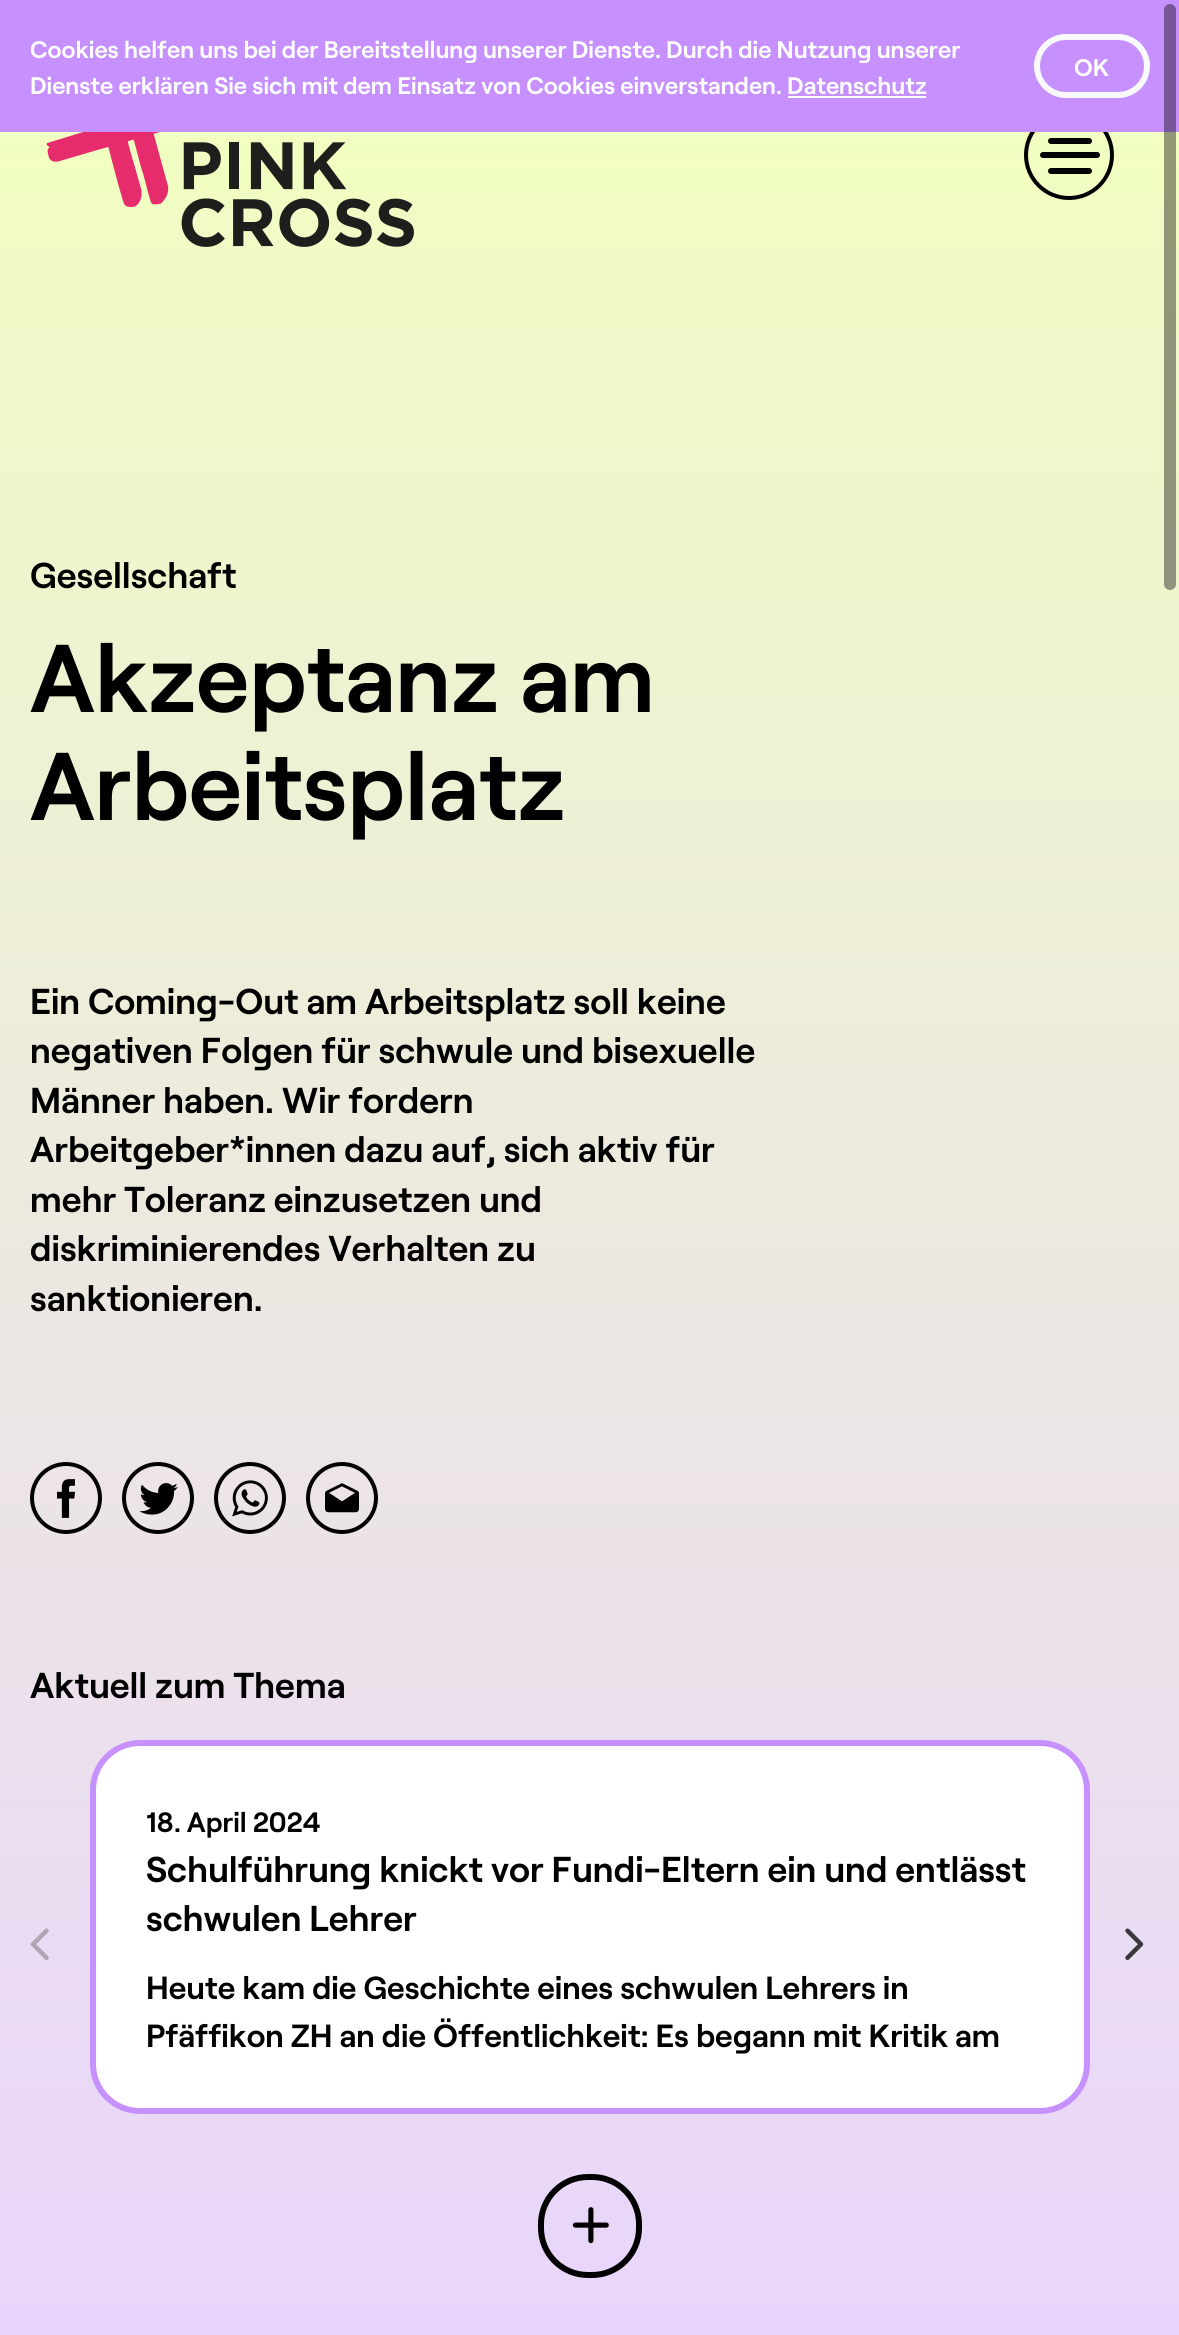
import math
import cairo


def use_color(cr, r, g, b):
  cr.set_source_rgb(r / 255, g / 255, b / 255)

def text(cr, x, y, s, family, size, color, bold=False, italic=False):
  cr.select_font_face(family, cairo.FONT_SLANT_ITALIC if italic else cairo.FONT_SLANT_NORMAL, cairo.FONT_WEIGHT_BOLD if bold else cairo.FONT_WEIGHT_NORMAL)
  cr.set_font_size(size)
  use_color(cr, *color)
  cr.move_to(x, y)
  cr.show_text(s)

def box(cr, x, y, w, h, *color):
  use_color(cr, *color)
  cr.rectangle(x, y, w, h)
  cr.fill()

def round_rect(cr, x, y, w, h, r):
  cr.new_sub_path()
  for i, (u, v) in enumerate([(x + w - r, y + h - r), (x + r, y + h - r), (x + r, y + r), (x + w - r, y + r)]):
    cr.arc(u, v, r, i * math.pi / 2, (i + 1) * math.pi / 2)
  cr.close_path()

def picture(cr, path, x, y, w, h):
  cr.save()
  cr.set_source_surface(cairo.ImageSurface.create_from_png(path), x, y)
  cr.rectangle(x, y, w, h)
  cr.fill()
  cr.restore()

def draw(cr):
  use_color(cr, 255, 255, 255)
  cr.paint()
  gradient = cairo.LinearGradient(590, 0, 590, 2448)
  gradient.add_color_stop_rgba(0, 0.945, 1, 0.753, 1)
  gradient.add_color_stop_rgba(1, 0.91, 0.827, 1, 1)
  cr.set_source(gradient)
  cr.rectangle(0, 132, 1179, 2203)
  cr.fill()
  gradient = cairo.LinearGradient(590, 0, 590, 240)
  gradient.add_color_stop_rgba(0, 0.945, 1, 0.753, 1)
  gradient.add_color_stop_rgba(0.75, 0.945, 1, 0.753, 0.75)
  gradient.add_color_stop_rgba(1, 0.945, 1, 0.753, 0)
  cr.set_source(gradient)
  cr.rectangle(0, 133, 1179, 74)
  cr.fill()
  cr.arc(1069, 155, 43, 0, 2 * math.pi)
  use_color(cr, 0, 0, 0)
  cr.set_line_width(4)
  cr.stroke()
  box(cr, 0, 0, 1179, 132, 198, 145, 255)
  box(cr, 788, 96, 138, 2, 255, 255, 255)
  round_rect(cr, 1037, 37, 110, 58, 29)
  use_color(cr, 248, 249, 250)
  cr.set_line_width(6)
  cr.stroke()
  picture(cr, "img_01.png", 46, 132, 368, 115)
  use_color(cr, 0, 0, 0)
  round_rect(cr, 1040, 152, 60, 6, 3)
  cr.fill()
  round_rect(cr, 1048, 138, 44, 6, 3)
  cr.fill()
  round_rect(cr, 1048, 168, 44, 6, 3)
  cr.fill()
  cr.arc(66, 1498, 34, 0, 2 * math.pi)
  cr.set_line_width(4)
  cr.stroke()
  picture(cr, "img_02.png", 56, 1479, 19, 39)
  cr.arc(158, 1498, 34, 0, 2 * math.pi)
  cr.stroke()
  picture(cr, "img_03.png", 139, 1483, 39, 32)
  cr.arc(250, 1498, 34, 0, 2 * math.pi)
  cr.stroke()
  picture(cr, "img_04.png", 232, 1480, 36, 37)
  cr.arc(342, 1498, 34, 0, 2 * math.pi)
  cr.stroke()
  picture(cr, "img_05.png", 325, 1483, 34, 30)
  picture(cr, "img_06.png", 30, 1928, 19, 32)
  use_color(cr, 255, 255, 255)
  round_rect(cr, 93, 1743, 994, 368, 47)
  cr.fill_preserve()
  use_color(cr, 198, 145, 255)
  cr.set_line_width(6)
  cr.stroke()
  picture(cr, "img_07.png", 1125, 1928, 19, 32)
  round_rect(cr, 541, 2177, 98, 98, 47)
  use_color(cr, 0, 0, 0)
  cr.stroke()
  picture(cr, "img_08.png", 572, 2207, 37, 37)
  cr.set_source_rgba(0, 0, 0, 0.4)
  round_rect(cr, 1164, 4, 12, 586, 6)
  cr.fill()
  text(cr, 30, 58, "Cookies helfen uns bei der Bereitstellung unserer Dienste. Durch die Nutzung unserer", "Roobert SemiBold", 24, (255, 255, 255))
  text(cr, 30, 94, "Dienste erklären Sie sich mit dem Einsatz von Cookies einverstanden. Datenschutz", "Roobert SemiBold", 24, (255, 255, 255))
  text(cr, 1074, 76, "OK", "Roobert SemiBold", 24, (255, 255, 255))
  text(cr, 30, 588, "Gesellschaft", "Roobert SemiBold", 36, (0, 0, 0))
  text(cr, 30, 712, "Akzeptanz am", "Roobert SemiBold", 96, (0, 0, 0))
  text(cr, 30, 820, "Arbeitsplatz", "Roobert SemiBold", 96, (0, 0, 0))
  text(cr, 30, 1014, "Ein Coming-Out am Arbeitsplatz soll keine", "Roobert SemiBold", 36, (0, 0, 0))
  text(cr, 30, 1063, "negativen Folgen für schwule und bisexuelle", "Roobert SemiBold", 36, (0, 0, 0))
  text(cr, 30, 1113, "Männer haben. Wir fordern", "Roobert SemiBold", 36, (0, 0, 0))
  text(cr, 30, 1162, "Arbeitgeber*innen dazu auf, sich aktiv für", "Roobert SemiBold", 36, (0, 0, 0))
  text(cr, 30, 1212, "mehr Toleranz einzusetzen und", "Roobert SemiBold", 36, (0, 0, 0))
  text(cr, 30, 1261, "diskriminierendes Verhalten zu", "Roobert SemiBold", 36, (0, 0, 0))
  text(cr, 30, 1311, "sanktionieren.", "Roobert SemiBold", 36, (0, 0, 0))
  text(cr, 30, 1698, "Aktuell zum Thema", "Roobert SemiBold", 36, (0, 0, 0))
  text(cr, 146, 1832, "18. April 2024", "Roobert SemiBold", 28, (0, 0, 0))
  text(cr, 146, 1882, "Schulführung knickt vor Fundi-Eltern ein und entlässt", "Roobert SemiBold", 36, (0, 0, 0))
  text(cr, 146, 1931, "schwulen Lehrer", "Roobert SemiBold", 36, (0, 0, 0))
  text(cr, 146, 1999, "Heute kam die Geschichte eines schwulen Lehrers in", "Roobert SemiBold", 32, (0, 0, 0))
  text(cr, 146, 2047, "Pfäffikon ZH an die Öffentlichkeit: Es begann mit Kritik am", "Roobert SemiBold", 32, (0, 0, 0))


surface = cairo.ImageSurface(cairo.FORMAT_RGB24, 1179, 2335)
cr = cairo.Context(surface)
options = cairo.FontOptions()
options.set_hint_metrics(cairo.HINT_METRICS_OFF)
options.set_hint_style(cairo.HINT_STYLE_NONE)
cr.set_font_options(options)
cr.set_miter_limit(4)
draw(cr)
surface.write_to_png("out.png")
